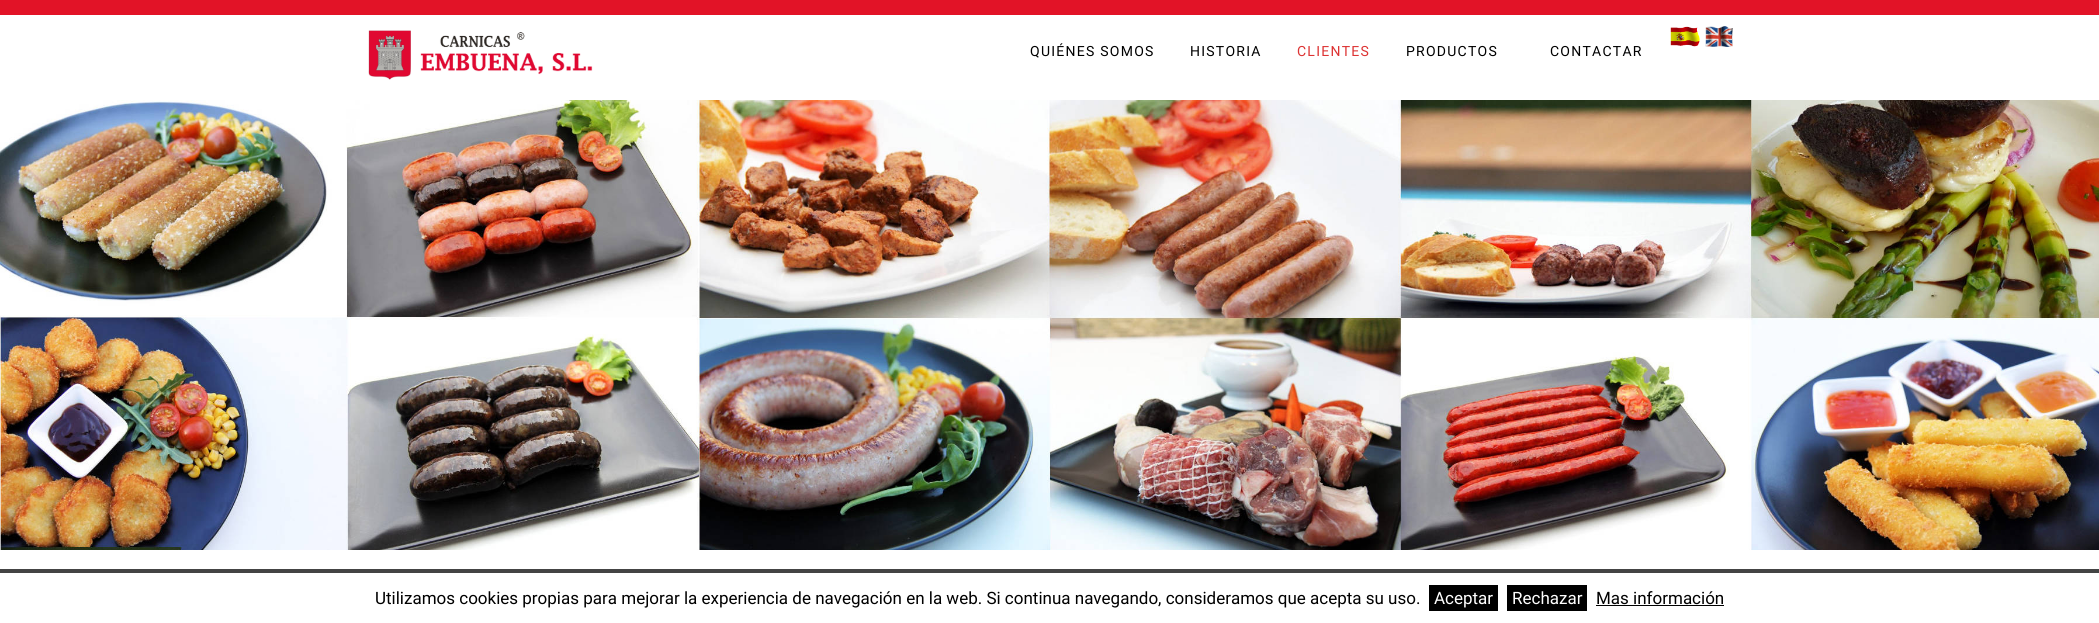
import math
import cairo


def use_color(cr, r, g, b):
  cr.set_source_rgb(r / 255, g / 255, b / 255)

def text(cr, x, y, s, family, size, color, bold=False, italic=False):
  cr.select_font_face(family, cairo.FONT_SLANT_ITALIC if italic else cairo.FONT_SLANT_NORMAL, cairo.FONT_WEIGHT_BOLD if bold else cairo.FONT_WEIGHT_NORMAL)
  cr.set_font_size(size)
  use_color(cr, *color)
  cr.move_to(x, y)
  cr.show_text(s)

def spaced_text(cr, x, y, s, letter, word):
  cr.move_to(x, y)
  for ch in s:
    cr.show_text(ch)
    cr.rel_move_to(letter + word * (ch == ' '), 0)

def box(cr, x, y, w, h, *color):
  use_color(cr, *color)
  cr.rectangle(x, y, w, h)
  cr.fill()

def picture(cr, path, x, y, w, h):
  cr.save()
  cr.set_source_surface(cairo.ImageSurface.create_from_png(path), x, y)
  cr.rectangle(x, y, w, h)
  cr.fill()
  cr.restore()

def draw(cr):
  use_color(cr, 255, 255, 255)
  cr.paint()
  box(cr, 0, 0, 2099, 15, 226, 19, 39)
  picture(cr, "img_01.png", 368, 30, 225, 50)
  picture(cr, "img_02.png", 1670, 26, 30, 21)
  picture(cr, "img_03.png", 1705, 26, 28, 21)
  picture(cr, "img_04.png", 0, 100, 2099, 450)
  box(cr, 0, 569, 2099, 4, 68, 68, 68)
  box(cr, 1429, 585, 69, 26, 0, 0, 0)
  box(cr, 1507, 585, 80, 26, 0, 0, 0)
  box(cr, 1596, 605, 128, 1, 0, 0, 0)
  cr.select_font_face("Roboto")
  cr.set_font_size(14)
  spaced_text(cr, 1030, 56, "QUIÉNES SOMOS", 1.25, 0)
  spaced_text(cr, 1190, 56, "HISTORIA", 1.25, 0)
  use_color(cr, 221, 51, 51)
  spaced_text(cr, 1297, 56, "CLIENTES", 1.25, 0)
  use_color(cr, 0, 0, 0)
  spaced_text(cr, 1406, 56, "PRODUCTOS", 1.25, 0)
  spaced_text(cr, 1550, 56, "CONTACTAR", 1.25, 0)
  text(cr, 375, 604, "Utilizamos cookies propias para mejorar la experiencia de navegación en la web. Si continua navegando, consideramos que acepta su uso.", "Roboto", 17, (0, 0, 0))
  text(cr, 1434, 604, "Aceptar", "Roboto", 17, (255, 255, 255))
  text(cr, 1512, 604, "Rechazar", "Roboto", 17, (255, 255, 255))
  text(cr, 1596, 604, "Mas información", "Roboto", 17, (0, 0, 0))


surface = cairo.ImageSurface(cairo.FORMAT_RGB24, 2099, 623)
cr = cairo.Context(surface)
options = cairo.FontOptions()
options.set_hint_metrics(cairo.HINT_METRICS_OFF)
options.set_hint_style(cairo.HINT_STYLE_NONE)
cr.set_font_options(options)
cr.set_miter_limit(4)
draw(cr)
surface.write_to_png("out.png")
